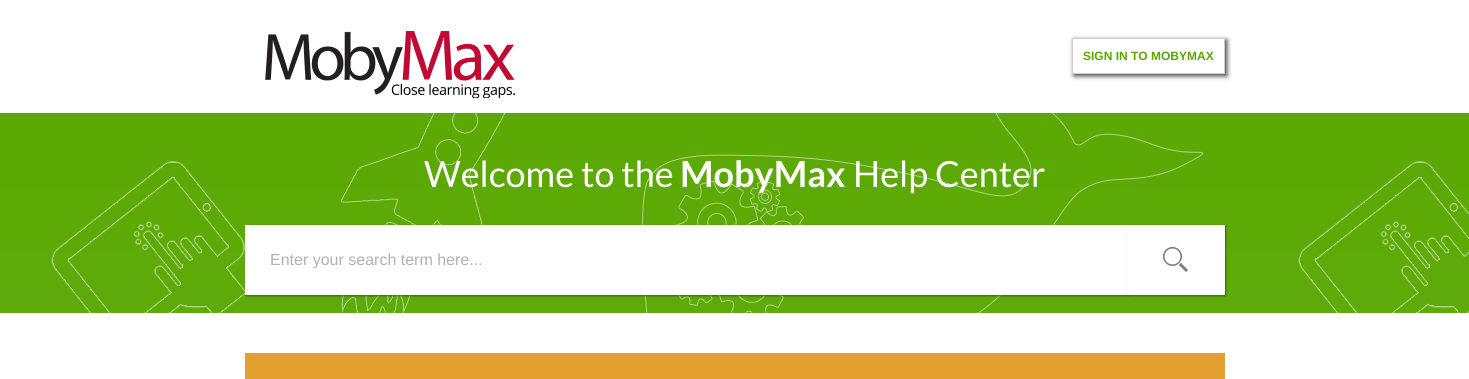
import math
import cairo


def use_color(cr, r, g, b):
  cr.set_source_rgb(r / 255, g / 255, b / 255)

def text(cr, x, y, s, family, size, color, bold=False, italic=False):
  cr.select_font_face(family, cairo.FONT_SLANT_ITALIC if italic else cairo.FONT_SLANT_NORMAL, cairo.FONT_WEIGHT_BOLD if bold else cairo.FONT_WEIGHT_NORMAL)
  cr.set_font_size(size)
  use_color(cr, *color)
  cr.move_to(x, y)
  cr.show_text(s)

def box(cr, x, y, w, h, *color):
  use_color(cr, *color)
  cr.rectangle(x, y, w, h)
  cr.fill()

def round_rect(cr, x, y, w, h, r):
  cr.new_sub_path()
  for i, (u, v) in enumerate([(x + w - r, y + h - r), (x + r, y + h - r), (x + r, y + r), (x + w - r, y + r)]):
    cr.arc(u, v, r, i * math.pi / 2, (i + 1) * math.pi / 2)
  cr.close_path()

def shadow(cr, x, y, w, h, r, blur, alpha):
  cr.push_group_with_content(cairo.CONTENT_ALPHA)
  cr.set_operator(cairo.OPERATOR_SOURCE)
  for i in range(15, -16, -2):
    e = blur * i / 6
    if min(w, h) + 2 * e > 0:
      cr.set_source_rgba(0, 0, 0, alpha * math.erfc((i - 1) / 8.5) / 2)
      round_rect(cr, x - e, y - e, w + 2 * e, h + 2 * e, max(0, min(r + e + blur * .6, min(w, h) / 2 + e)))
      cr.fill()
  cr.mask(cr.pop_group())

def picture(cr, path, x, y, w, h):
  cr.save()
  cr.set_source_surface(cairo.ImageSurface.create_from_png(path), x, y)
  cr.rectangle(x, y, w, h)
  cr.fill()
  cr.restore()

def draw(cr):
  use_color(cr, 255, 255, 255)
  cr.paint()
  picture(cr, "img_01.png", 265, 31, 250, 67)
  cr.save()
  cr.set_fill_rule(cairo.FILL_RULE_EVEN_ODD)
  cr.new_path()
  cr.move_to(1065, 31)
  cr.line_to(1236, 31)
  cr.line_to(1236, 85)
  cr.line_to(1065, 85)
  cr.close_path()
  cr.move_to(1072, 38)
  cr.line_to(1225, 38)
  cr.line_to(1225, 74)
  cr.line_to(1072, 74)
  cr.close_path()
  cr.clip()
  use_color(cr, 0, 0, 0)
  shadow(cr, 1074, 40, 153, 36, 0, 2.5, 0.75)
  cr.restore()
  cr.rectangle(1072.5, 38.5, 152, 35)
  use_color(cr, 204, 204, 204)
  cr.set_line_width(1)
  cr.stroke()
  picture(cr, "img_02.png", 0, 113, 1469, 200)
  use_color(cr, 0, 0, 0)
  shadow(cr, 246, 226, 882, 70, 0, 1, 0.4)
  box(cr, 245, 225, 882, 70, 255, 255, 255)
  use_color(cr, 0, 0, 0)
  shadow(cr, 1128, 226, 98, 70, 0, 1, 0.4)
  box(cr, 1127, 225, 98, 70, 255, 255, 255)
  picture(cr, "img_03.png", 1163, 247, 25, 25)
  box(cr, 245, 353, 980, 26, 227, 159, 47)
  text(cr, 1083, 60, "SIGN IN TO MOBYMAX", "Liberation Sans", 12, (89, 168, 0), bold=True)
  text(cr, 424, 187, "Welcome to the", "Lato", 36, (255, 255, 255))
  text(cr, 680, 187, "MobyMax", "Lato", 36, (255, 255, 255), bold=True)
  text(cr, 853, 187, "Help Center", "Lato", 36, (255, 255, 255))
  text(cr, 270, 265, "Enter your search term here...", "Liberation Sans", 16, (178, 178, 178))


surface = cairo.ImageSurface(cairo.FORMAT_RGB24, 1469, 379)
cr = cairo.Context(surface)
options = cairo.FontOptions()
options.set_hint_metrics(cairo.HINT_METRICS_OFF)
options.set_hint_style(cairo.HINT_STYLE_NONE)
cr.set_font_options(options)
cr.set_miter_limit(4)
draw(cr)
surface.write_to_png("out.png")
